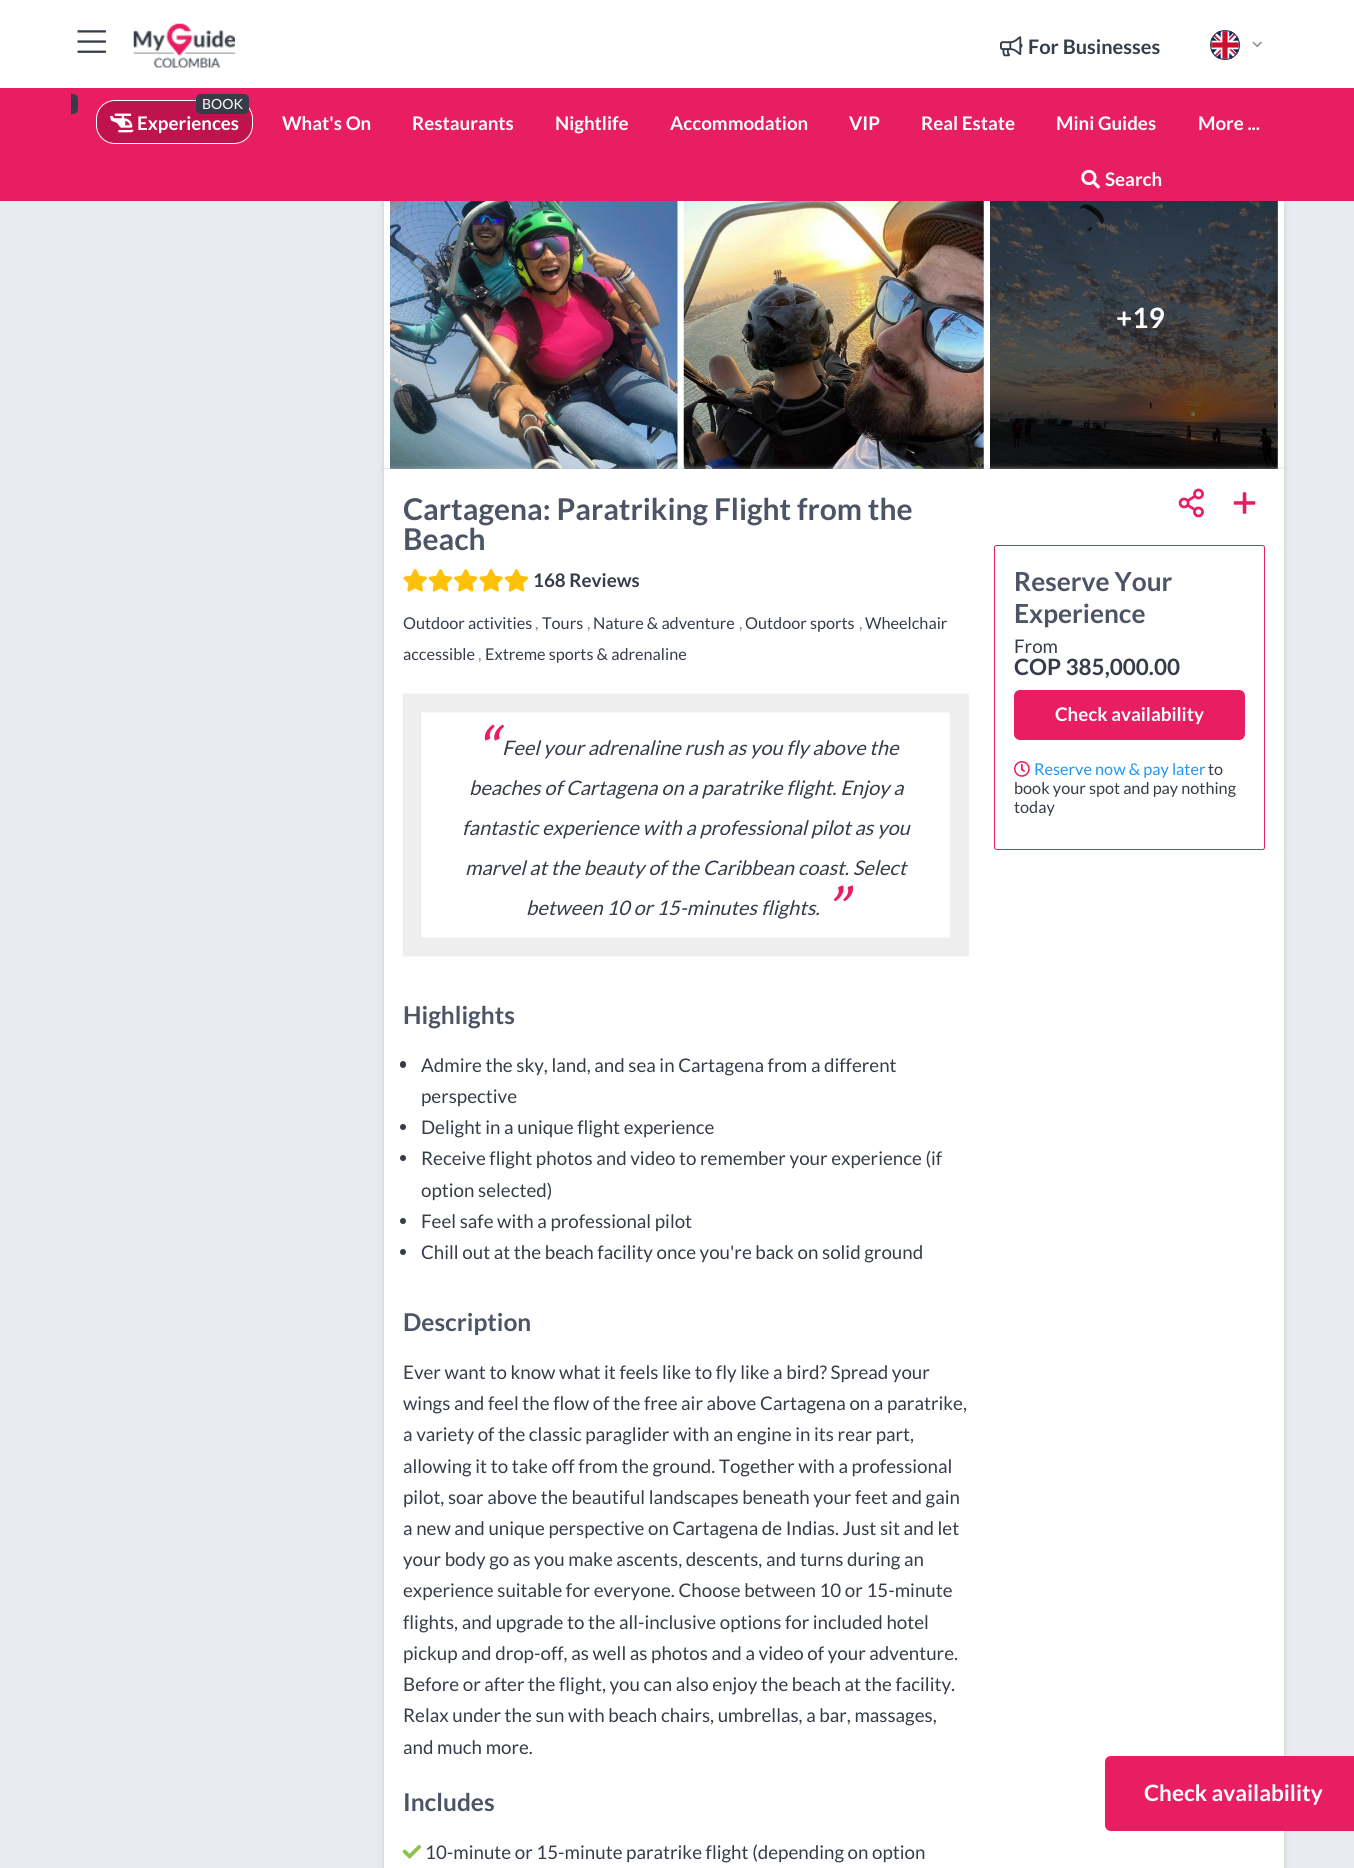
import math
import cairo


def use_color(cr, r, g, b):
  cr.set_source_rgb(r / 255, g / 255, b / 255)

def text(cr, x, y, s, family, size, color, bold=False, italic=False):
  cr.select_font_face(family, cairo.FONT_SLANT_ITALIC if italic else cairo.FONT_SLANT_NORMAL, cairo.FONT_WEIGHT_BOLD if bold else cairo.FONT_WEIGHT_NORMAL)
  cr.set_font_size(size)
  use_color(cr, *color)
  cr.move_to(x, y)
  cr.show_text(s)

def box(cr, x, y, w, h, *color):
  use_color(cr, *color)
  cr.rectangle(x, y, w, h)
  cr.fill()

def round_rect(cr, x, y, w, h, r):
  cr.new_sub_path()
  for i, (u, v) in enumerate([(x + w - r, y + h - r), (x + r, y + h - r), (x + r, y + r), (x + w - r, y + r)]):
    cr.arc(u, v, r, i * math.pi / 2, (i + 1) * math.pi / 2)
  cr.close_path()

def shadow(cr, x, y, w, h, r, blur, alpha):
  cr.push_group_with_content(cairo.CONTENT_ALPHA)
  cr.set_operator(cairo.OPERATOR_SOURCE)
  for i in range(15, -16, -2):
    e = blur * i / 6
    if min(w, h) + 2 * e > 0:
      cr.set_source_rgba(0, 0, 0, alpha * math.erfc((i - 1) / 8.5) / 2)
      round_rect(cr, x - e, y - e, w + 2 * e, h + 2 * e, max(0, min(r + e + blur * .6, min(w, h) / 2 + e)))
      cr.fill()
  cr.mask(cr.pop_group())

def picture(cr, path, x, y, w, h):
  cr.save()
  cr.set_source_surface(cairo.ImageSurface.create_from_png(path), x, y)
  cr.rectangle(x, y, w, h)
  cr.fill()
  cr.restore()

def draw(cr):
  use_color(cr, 232, 236, 241)
  cr.paint()
  use_color(cr, 204, 204, 204)
  shadow(cr, 384, -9, 900, 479, 0, 3, 1)
  box(cr, 0, 0, 1354, 88, 255, 255, 255)
  picture(cr, "img_01.png", 77, 30, 29, 23)
  picture(cr, "img_02.png", 133, 23, 102, 45)
  picture(cr, "img_03.png", 1000, 36, 23, 21)
  picture(cr, "img_04.png", 1211, 31, 28, 28)
  cr.arc(1225, 45, 14.5, 0, 2 * math.pi)
  use_color(cr, 54, 60, 72)
  cr.set_line_width(1)
  cr.stroke()
  picture(cr, "img_05.png", 1252, 41, 10, 7)
  box(cr, 0, 88, 1354, 113, 233, 29, 98)
  use_color(cr, 54, 60, 72)
  cr.new_path()
  cr.move_to(71, 94)
  cr.line_to(73, 94)
  cr.curve_to(76, 94, 78, 96, 78, 99)
  cr.line_to(78, 109)
  cr.curve_to(78, 112, 76, 114, 73, 114)
  cr.line_to(71, 114)
  cr.close_path()
  cr.fill()
  use_color(cr, 192, 19, 77)
  round_rect(cr, 96.5, 100.5, 156, 43, 18.5)
  cr.fill_preserve()
  use_color(cr, 255, 255, 255)
  cr.stroke()
  use_color(cr, 54, 60, 72)
  round_rect(cr, 196, 94, 53, 20, 5)
  cr.fill()
  picture(cr, "img_06.png", 110, 113, 24, 20)
  picture(cr, "img_07.png", 1081, 169, 19, 20)
  box(cr, 384, 201, 900, 268, 255, 255, 255)
  picture(cr, "img_08.png", 390, 201, 288, 268)
  picture(cr, "img_09.png", 683, 201, 301, 268)
  picture(cr, "img_10.png", 990, 201, 288, 268)
  cr.set_source_rgba(0, 0, 0, 0.6)
  cr.rectangle(990, 201, 288, 268)
  cr.fill()
  use_color(cr, 204, 204, 204)
  shadow(cr, 384, 470, 900, 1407, 0, 3, 1)
  box(cr, 384, 469, 900, 1399, 255, 255, 255)
  picture(cr, "img_11.png", 403, 569, 126, 23)
  cr.new_path()
  cr.move_to(412, 703)
  cr.line_to(959.5, 703)
  cr.line_to(959.5, 947)
  cr.line_to(412, 947)
  cr.close_path()
  use_color(cr, 238, 238, 238)
  cr.set_line_width(18.8)
  cr.stroke()
  use_color(cr, 54, 60, 72)
  round_rect(cr, 400, 1061, 6, 7, 3)
  cr.fill()
  cr.arc(403, 1127, 3, 0, 2 * math.pi)
  cr.fill()
  cr.arc(403, 1158, 3, 0, 2 * math.pi)
  cr.fill()
  cr.arc(403, 1221, 3, 0, 2 * math.pi)
  cr.fill()
  cr.arc(403, 1252, 3, 0, 2 * math.pi)
  cr.fill()
  picture(cr, "img_12.png", 402, 1844, 20, 15)
  picture(cr, "img_13.png", 1178, 488, 26, 30)
  picture(cr, "img_14.png", 1233, 492, 23, 22)
  round_rect(cr, 994.5, 545.5, 270, 304, 2)
  use_color(cr, 233, 29, 98)
  cr.set_line_width(1)
  cr.stroke()
  round_rect(cr, 1014, 690, 231, 50, 6)
  cr.fill()
  picture(cr, "img_15.png", 1014, 761, 16, 16)
  cr.new_path()
  cr.move_to(1111, 1756)
  cr.line_to(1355, 1756)
  cr.line_to(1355, 1831)
  cr.line_to(1111, 1831)
  cr.curve_to(1107.5, 1831, 1105, 1828.5, 1105, 1825)
  cr.line_to(1105, 1762)
  cr.curve_to(1105, 1758.5, 1107.5, 1756, 1111, 1756)
  cr.close_path()
  cr.fill()
  text(cr, 1028, 54, "For Businesses", "Lato", 20, (54, 60, 72), bold=True)
  text(cr, 202, 109, "BOOK", "Lato", 14, (255, 255, 255))
  text(cr, 137, 130, "Experiences", "Lato", 18.75, (255, 255, 255), bold=True)
  text(cr, 282, 130, "What's On", "Lato", 18.75, (255, 255, 255), bold=True)
  text(cr, 412, 130, "Restaurants", "Lato", 18.75, (255, 255, 255), bold=True)
  text(cr, 555, 130, "Nightlife", "Lato", 18.75, (255, 255, 255), bold=True)
  text(cr, 670, 130, "Accommodation", "Lato", 18.75, (255, 255, 255), bold=True)
  text(cr, 849, 130, "VIP", "Lato", 18.75, (255, 255, 255), bold=True)
  text(cr, 921, 130, "Real Estate", "Lato", 18.75, (255, 255, 255), bold=True)
  text(cr, 1056, 130, "Mini Guides", "Lato", 18.75, (255, 255, 255), bold=True)
  text(cr, 1198, 130, "More ...", "Lato", 18.75, (255, 255, 255), bold=True)
  text(cr, 1105, 186, "Search", "Lato", 18.75, (255, 255, 255), bold=True)
  text(cr, 1116, 328, "+19", "Lato", 28, (255, 255, 255), bold=True)
  text(cr, 403, 520, "Cartagena: Paratriking Flight from the", "Lato", 30, (76, 84, 101), bold=True)
  text(cr, 403, 550, "Beach", "Lato", 30, (76, 84, 101), bold=True)
  text(cr, 533, 587, "168 Reviews", "Lato", 18.75, (54, 60, 72), bold=True)
  text(cr, 403, 629, "Outdoor activities", "Lato", 16.25, (54, 60, 72))
  text(cr, 535, 629, ",", "Lato", 16.25, (131, 131, 131))
  text(cr, 542, 629, "Tours", "Lato", 16.25, (54, 60, 72))
  text(cr, 587, 629, ",", "Lato", 16.25, (131, 131, 131))
  text(cr, 593, 629, "Nature & adventure", "Lato", 16.25, (54, 60, 72))
  text(cr, 739, 629, ",", "Lato", 16.25, (131, 131, 131))
  text(cr, 745, 629, "Outdoor sports", "Lato", 16.25, (54, 60, 72))
  text(cr, 859, 629, ",", "Lato", 16.25, (131, 131, 131))
  text(cr, 865, 629, "Wheelchair", "Lato", 16.25, (54, 60, 72))
  text(cr, 403, 660, "accessible", "Lato", 16.25, (54, 60, 72))
  text(cr, 478, 660, ",", "Lato", 16.25, (131, 131, 131))
  text(cr, 485, 660, "Extreme sports & adrenaline", "Lato", 16.25, (54, 60, 72))
  text(cr, 474, 772, "“", "Lato", 62, (233, 29, 98), italic=True)
  text(cr, 502, 755, "Feel your adrenaline rush as you fly above the", "Lato", 20, (54, 60, 72), italic=True)
  text(cr, 469, 795, "beaches of Cartagena on a paratrike flight. Enjoy a", "Lato", 20, (54, 60, 72), italic=True)
  text(cr, 462, 835, "fantastic experience with a professional pilot as you", "Lato", 20, (54, 60, 72), italic=True)
  text(cr, 465, 875, "marvel at the beauty of the Caribbean coast. Select", "Lato", 20, (54, 60, 72), italic=True)
  text(cr, 823, 932, "”", "Lato", 62, (233, 29, 98), italic=True)
  text(cr, 526, 915, "between 10 or 15-minutes flights.", "Lato", 20, (54, 60, 72), italic=True)
  text(cr, 403, 1024, "Highlights", "Lato", 24.5, (76, 84, 101), bold=True)
  text(cr, 421, 1072, "Admire the sky, land, and sea in Cartagena from a different", "Lato", 18.75, (54, 60, 72))
  text(cr, 421, 1103, "perspective", "Lato", 18.75, (54, 60, 72))
  text(cr, 421, 1134, "Delight in a unique flight experience", "Lato", 18.75, (54, 60, 72))
  text(cr, 421, 1165, "Receive flight photos and video to remember your experience (if", "Lato", 18.75, (54, 60, 72))
  text(cr, 421, 1197, "option selected)", "Lato", 18.75, (54, 60, 72))
  text(cr, 421, 1228, "Feel safe with a professional pilot", "Lato", 18.75, (54, 60, 72))
  text(cr, 421, 1259, "Chill out at the beach facility once you're back on solid ground", "Lato", 18.75, (54, 60, 72))
  text(cr, 403, 1331, "Description", "Lato", 24.5, (76, 84, 101), bold=True)
  text(cr, 403, 1379, "Ever want to know what it feels like to fly like a bird? Spread your", "Lato", 18.75, (54, 60, 72))
  text(cr, 403, 1410, "wings and feel the flow of the free air above Cartagena on a paratrike,", "Lato", 18.75, (54, 60, 72))
  text(cr, 403, 1441, "a variety of the classic paraglider with an engine in its rear part,", "Lato", 18.75, (54, 60, 72))
  text(cr, 403, 1473, "allowing it to take off from the ground. Together with a professional", "Lato", 18.75, (54, 60, 72))
  text(cr, 403, 1504, "pilot, soar above the beautiful landscapes beneath your feet and gain", "Lato", 18.75, (54, 60, 72))
  text(cr, 403, 1535, "a new and unique perspective on Cartagena de Indias. Just sit and let", "Lato", 18.75, (54, 60, 72))
  text(cr, 403, 1566, "your body go as you make ascents, descents, and turns during an", "Lato", 18.75, (54, 60, 72))
  text(cr, 403, 1597, "experience suitable for everyone. Choose between 10 or 15-minute", "Lato", 18.75, (54, 60, 72))
  text(cr, 403, 1629, "flights, and upgrade to the all-inclusive options for included hotel", "Lato", 18.75, (54, 60, 72))
  text(cr, 403, 1660, "pickup and drop-off, as well as photos and a video of your adventure.", "Lato", 18.75, (54, 60, 72))
  text(cr, 403, 1691, "Before or after the flight, you can also enjoy the beach at the facility.", "Lato", 18.75, (54, 60, 72))
  text(cr, 403, 1722, "Relax under the sun with beach chairs, umbrellas, a bar, massages,", "Lato", 18.75, (54, 60, 72))
  text(cr, 403, 1754, "and much more.", "Lato", 18.75, (54, 60, 72))
  text(cr, 403, 1811, "Includes", "Lato", 24.5, (76, 84, 101), bold=True)
  text(cr, 425, 1859, "10-minute or 15-minute paratrike flight (depending on option", "Lato", 18.75, (54, 60, 72))
  text(cr, 1014, 591, "Reserve Your", "Lato", 26.25, (76, 84, 101), bold=True)
  text(cr, 1014, 623, "Experience", "Lato", 26.25, (76, 84, 101), bold=True)
  text(cr, 1014, 653, "From", "Lato", 18.75, (54, 60, 72))
  text(cr, 1014, 675, "COP 385,000.00", "Lato", 22.5, (54, 60, 72), bold=True)
  text(cr, 1055, 721, "Check availability", "Lato", 18.75, (255, 255, 255), bold=True)
  text(cr, 1034, 775, "Reserve now & pay later", "Lato", 16.25, (33, 150, 243))
  text(cr, 1208, 775, "to", "Lato", 16.25, (54, 60, 72))
  text(cr, 1014, 794, "book your spot and pay nothing", "Lato", 16.25, (54, 60, 72))
  text(cr, 1014, 813, "today", "Lato", 16.25, (54, 60, 72))
  text(cr, 1144, 1801, "Check availability", "Lato", 22.5, (255, 255, 255), bold=True)


surface = cairo.ImageSurface(cairo.FORMAT_RGB24, 1354, 1868)
cr = cairo.Context(surface)
options = cairo.FontOptions()
options.set_hint_metrics(cairo.HINT_METRICS_OFF)
options.set_hint_style(cairo.HINT_STYLE_NONE)
cr.set_font_options(options)
cr.set_miter_limit(4)
draw(cr)
surface.write_to_png("out.png")
